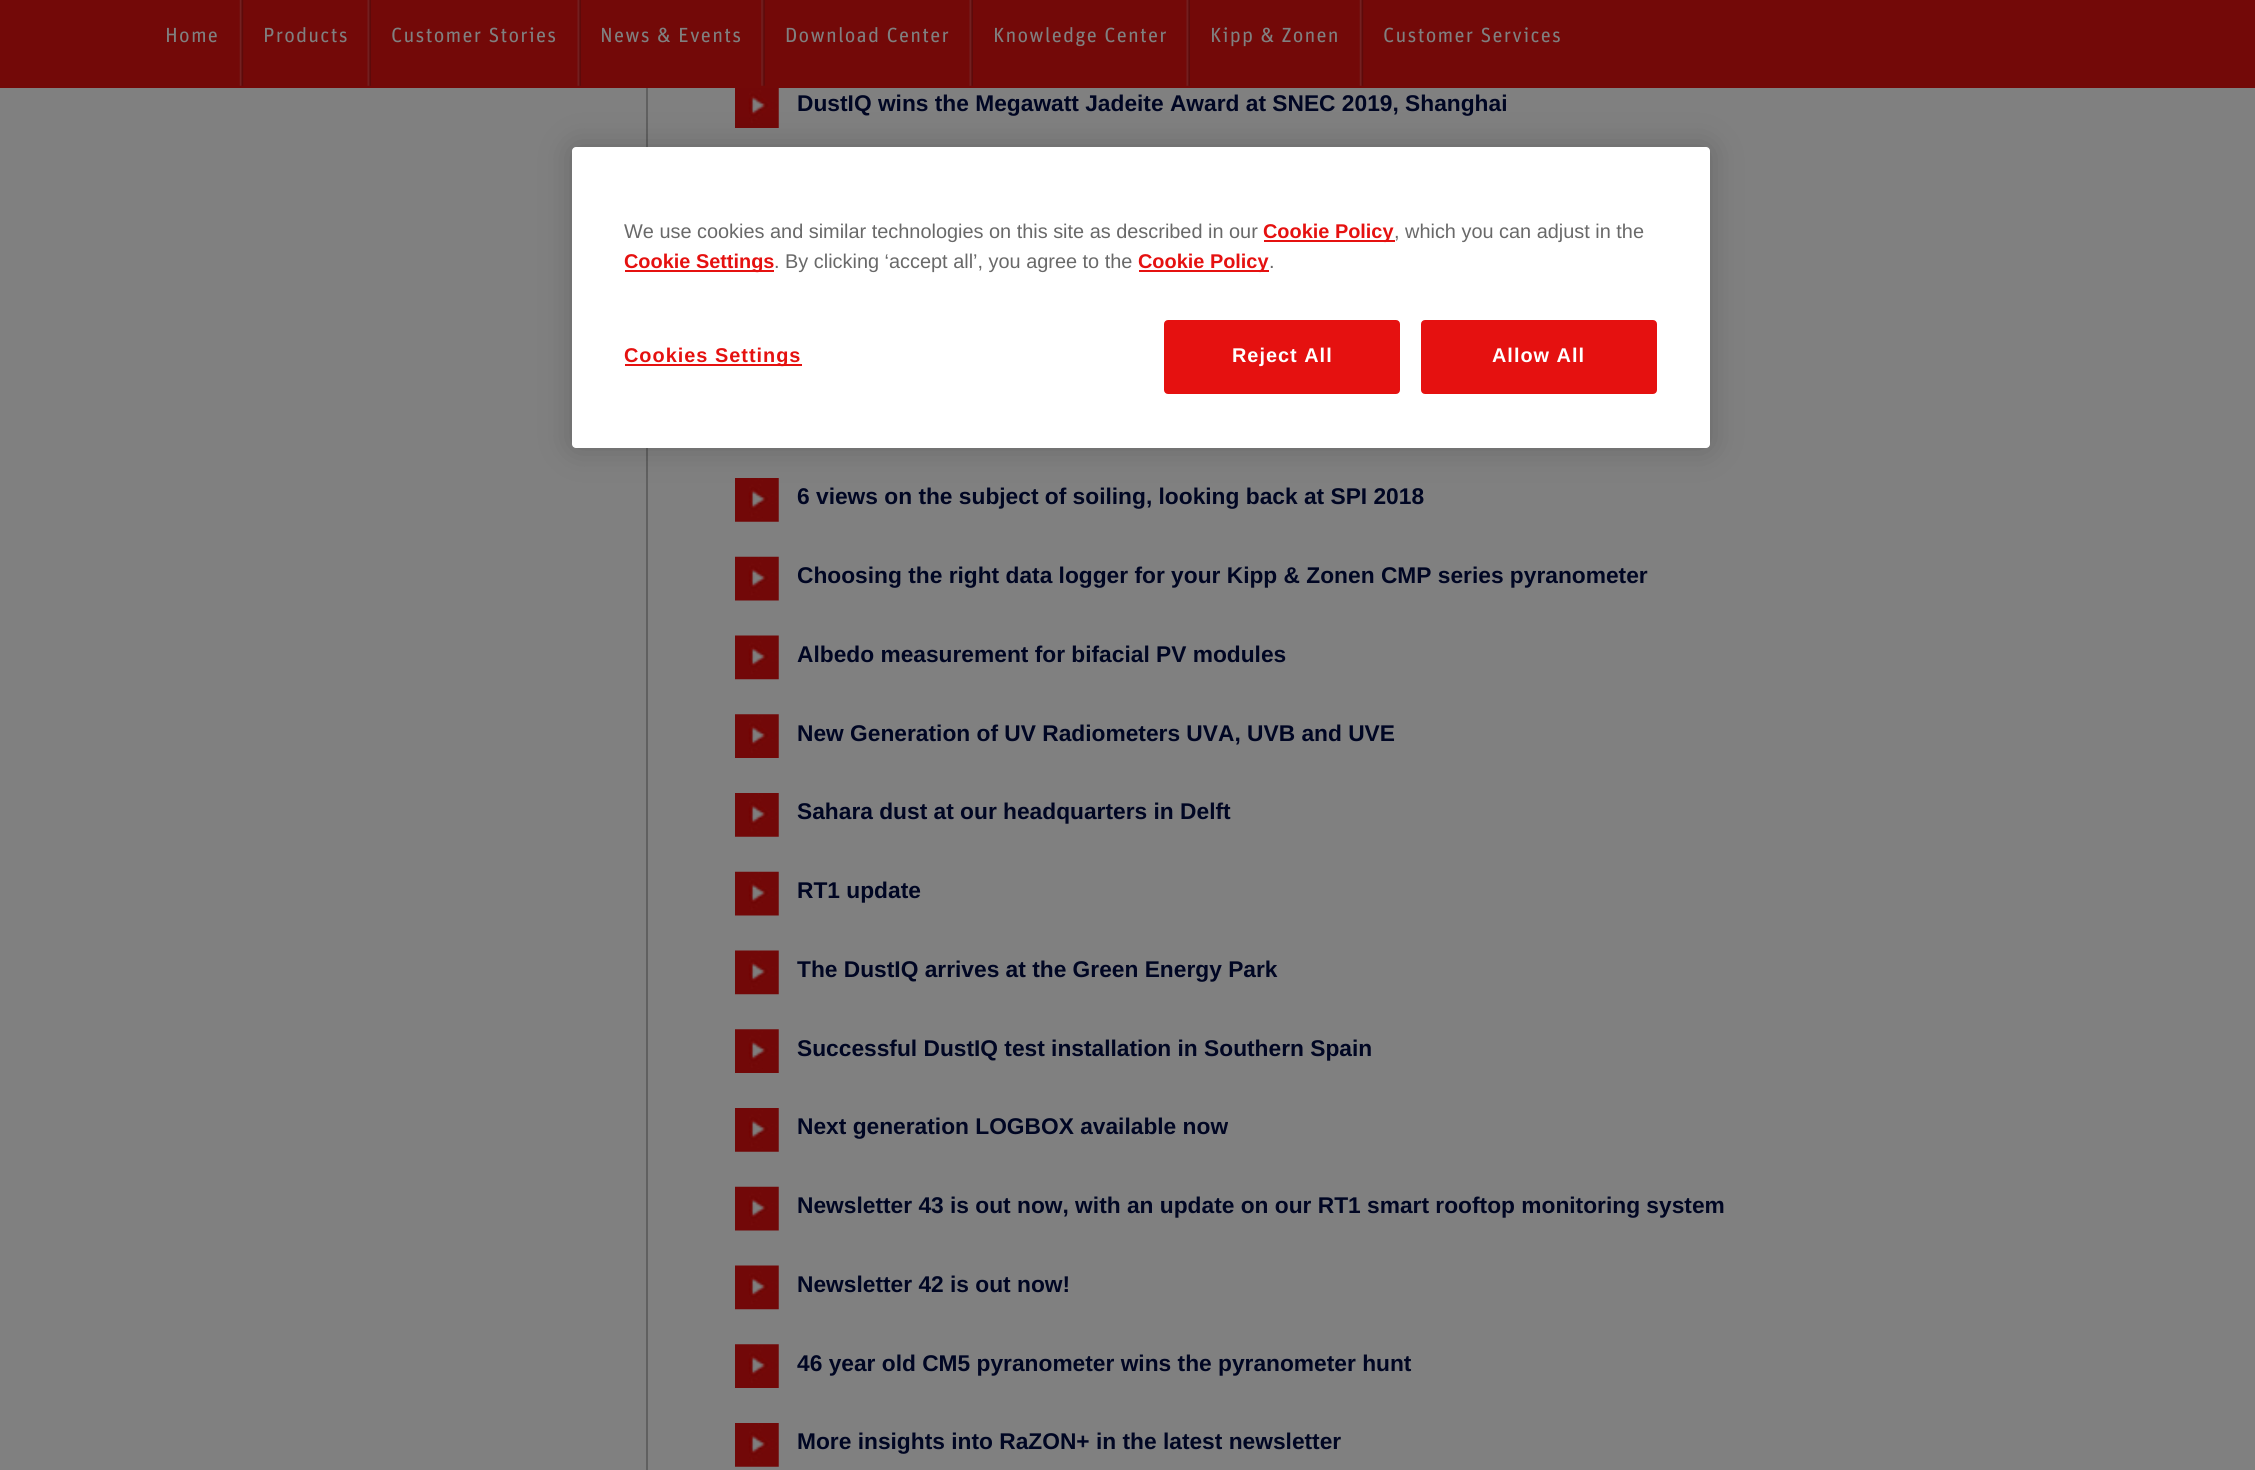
import math
import cairo


def use_color(cr, r, g, b):
  cr.set_source_rgb(r / 255, g / 255, b / 255)

def text(cr, x, y, s, family, size, color, bold=False, italic=False):
  cr.select_font_face(family, cairo.FONT_SLANT_ITALIC if italic else cairo.FONT_SLANT_NORMAL, cairo.FONT_WEIGHT_BOLD if bold else cairo.FONT_WEIGHT_NORMAL)
  cr.set_font_size(size)
  use_color(cr, *color)
  cr.move_to(x, y)
  cr.show_text(s)

def spaced_text(cr, x, y, s, letter, word):
  cr.move_to(x, y)
  for ch in s:
    cr.show_text(ch)
    cr.rel_move_to(letter + word * (ch == ' '), 0)

def box(cr, x, y, w, h, *color):
  use_color(cr, *color)
  cr.rectangle(x, y, w, h)
  cr.fill()

def round_rect(cr, x, y, w, h, r):
  cr.new_sub_path()
  for i, (u, v) in enumerate([(x + w - r, y + h - r), (x + r, y + h - r), (x + r, y + r), (x + w - r, y + r)]):
    cr.arc(u, v, r, i * math.pi / 2, (i + 1) * math.pi / 2)
  cr.close_path()

def shadow(cr, x, y, w, h, r, blur, alpha):
  cr.push_group_with_content(cairo.CONTENT_ALPHA)
  cr.set_operator(cairo.OPERATOR_SOURCE)
  for i in range(15, -16, -2):
    e = blur * i / 6
    if min(w, h) + 2 * e > 0:
      cr.set_source_rgba(0, 0, 0, alpha * math.erfc((i - 1) / 8.5) / 2)
      round_rect(cr, x - e, y - e, w + 2 * e, h + 2 * e, max(0, min(r + e + blur * .6, min(w, h) / 2 + e)))
      cr.fill()
  cr.mask(cr.pop_group())

def picture(cr, path, x, y, w, h):
  cr.save()
  cr.set_source_surface(cairo.ImageSurface.create_from_png(path), x, y)
  cr.rectangle(x, y, w, h)
  cr.fill()
  cr.restore()

def draw(cr):
  use_color(cr, 128, 128, 128)
  cr.paint()
  box(cr, 0, 0, 2255, 88, 115, 9, 8)
  picture(cr, "img_01.png", 239, 0, 5, 86)
  picture(cr, "img_02.png", 367, 0, 4, 86)
  picture(cr, "img_02.png", 577, 0, 4, 86)
  picture(cr, "img_03.png", 761, 0, 4, 86)
  picture(cr, "img_02.png", 969, 0, 4, 86)
  picture(cr, "img_02.png", 1186, 0, 4, 86)
  picture(cr, "img_04.png", 1359, 0, 5, 86)
  box(cr, 646, 88, 2, 1382, 96, 96, 96)
  picture(cr, "img_05.png", 735, 88, 44, 40)
  picture(cr, "img_06.png", 735, 478, 44, 44)
  picture(cr, "img_07.png", 735, 556, 44, 45)
  picture(cr, "img_08.png", 735, 635, 44, 45)
  picture(cr, "img_09.png", 735, 714, 44, 44)
  picture(cr, "img_06.png", 735, 793, 44, 44)
  picture(cr, "img_07.png", 735, 871, 44, 45)
  picture(cr, "img_08.png", 735, 950, 44, 45)
  picture(cr, "img_09.png", 735, 1029, 44, 44)
  picture(cr, "img_06.png", 735, 1108, 44, 44)
  picture(cr, "img_07.png", 735, 1186, 44, 45)
  picture(cr, "img_10.png", 735, 1265, 44, 45)
  picture(cr, "img_09.png", 735, 1344, 44, 44)
  picture(cr, "img_06.png", 735, 1423, 44, 44)
  use_color(cr, 0, 0, 0)
  shadow(cr, 572, 147, 1138, 301, 4, 16, 0.2)
  use_color(cr, 255, 255, 255)
  round_rect(cr, 572, 147, 1138, 301, 4)
  cr.fill()
  box(cr, 1264, 240, 131, 2, 229, 17, 16)
  box(cr, 625, 270, 149, 2, 229, 17, 16)
  box(cr, 1139, 270, 130, 2, 229, 17, 16)
  box(cr, 625, 364, 177, 2, 229, 17, 16)
  round_rect(cr, 1165, 321, 234, 72, 3)
  cr.fill_preserve()
  cr.stroke()
  round_rect(cr, 1422, 321, 234, 72, 3)
  cr.fill_preserve()
  cr.stroke()
  cr.select_font_face("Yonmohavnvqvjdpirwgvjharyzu")
  cr.set_font_size(20.5)
  use_color(cr, 128, 128, 128)
  spaced_text(cr, 165, 42, "Home", 1.2, 0)
  spaced_text(cr, 263, 42, "Products", 1.2, 0)
  spaced_text(cr, 391, 42, "Customer Stories", 1.2, 0)
  spaced_text(cr, 600, 42, "News & Events", 1.2, 0)
  spaced_text(cr, 785, 42, "Download Center", 1.2, 0)
  spaced_text(cr, 993, 42, "Knowledge Center", 1.2, 0)
  spaced_text(cr, 1210, 42, "Kipp & Zonen", 1.2, 0)
  spaced_text(cr, 1383, 42, "Customer Services", 1.2, 0)
  text(cr, 797, 111, "DustIQ wins the Megawatt Jadeite Award at SNEC 2019, Shanghai", "Liberation Sans", 22.75, (0, 6, 35), bold=True)
  text(cr, 797, 504, "6 views on the subject of soiling, looking back at SPI 2018", "Liberation Sans", 22.75, (0, 6, 35), bold=True)
  text(cr, 797, 583, "Choosing the right data logger for your Kipp & Zonen CMP series pyranometer", "Liberation Sans", 22.75, (0, 6, 35), bold=True)
  text(cr, 797, 662, "Albedo measurement for bifacial PV modules", "Liberation Sans", 22.75, (0, 6, 35), bold=True)
  text(cr, 797, 741, "New Generation of UV Radiometers UVA, UVB and UVE", "Liberation Sans", 22.75, (0, 6, 35), bold=True)
  text(cr, 797, 819, "Sahara dust at our headquarters in Delft", "Liberation Sans", 22.75, (0, 6, 35), bold=True)
  text(cr, 797, 898, "RT1 update", "Liberation Sans", 22.75, (0, 6, 35), bold=True)
  text(cr, 797, 977, "The DustIQ arrives at the Green Energy Park", "Liberation Sans", 22.75, (0, 6, 35), bold=True)
  text(cr, 797, 1056, "Successful DustIQ test installation in Southern Spain", "Liberation Sans", 22.75, (0, 6, 35), bold=True)
  text(cr, 797, 1134, "Next generation LOGBOX available now", "Liberation Sans", 22.75, (0, 6, 35), bold=True)
  text(cr, 797, 1213, "Newsletter 43 is out now, with an update on our RT1 smart rooftop monitoring system", "Liberation Sans", 22.75, (0, 6, 35), bold=True)
  text(cr, 797, 1292, "Newsletter 42 is out now!", "Liberation Sans", 22.75, (0, 6, 35), bold=True)
  text(cr, 797, 1371, "46 year old CM5 pyranometer wins the pyranometer hunt", "Liberation Sans", 22.75, (0, 6, 35), bold=True)
  text(cr, 797, 1449, "More insights into RaZON+ in the latest newsletter", "Liberation Sans", 22.75, (0, 6, 35), bold=True)
  text(cr, 624, 238, "We use cookies and similar technologies on this site as described in our", "Liberation Sans", 19.9, (105, 105, 105))
  text(cr, 1263, 238, "Cookie Policy", "Liberation Sans", 19.9, (229, 17, 16), bold=True)
  text(cr, 1394, 238, ", which you can adjust in the", "Liberation Sans", 19.9, (105, 105, 105))
  text(cr, 624, 268, "Cookie Settings", "Liberation Sans", 19.9, (229, 17, 16), bold=True)
  text(cr, 774, 268, ". By clicking ‘accept all’, you agree to the", "Liberation Sans", 19.9, (105, 105, 105))
  text(cr, 1138, 268, "Cookie Policy", "Liberation Sans", 19.9, (229, 17, 16), bold=True)
  text(cr, 1269, 268, ".", "Liberation Sans", 19.9, (105, 105, 105))
  cr.select_font_face("Liberation Sans", cairo.FONT_SLANT_NORMAL, cairo.FONT_WEIGHT_BOLD)
  use_color(cr, 229, 17, 16)
  spaced_text(cr, 624, 362, "Cookies Settings", 1, 0)
  use_color(cr, 255, 255, 255)
  spaced_text(cr, 1232, 362, "Reject All", 1, 0)
  spaced_text(cr, 1492, 362, "Allow All", 1, 0)


surface = cairo.ImageSurface(cairo.FORMAT_RGB24, 2255, 1470)
cr = cairo.Context(surface)
options = cairo.FontOptions()
options.set_hint_metrics(cairo.HINT_METRICS_OFF)
options.set_hint_style(cairo.HINT_STYLE_NONE)
cr.set_font_options(options)
cr.set_miter_limit(4)
draw(cr)
surface.write_to_png("out.png")
